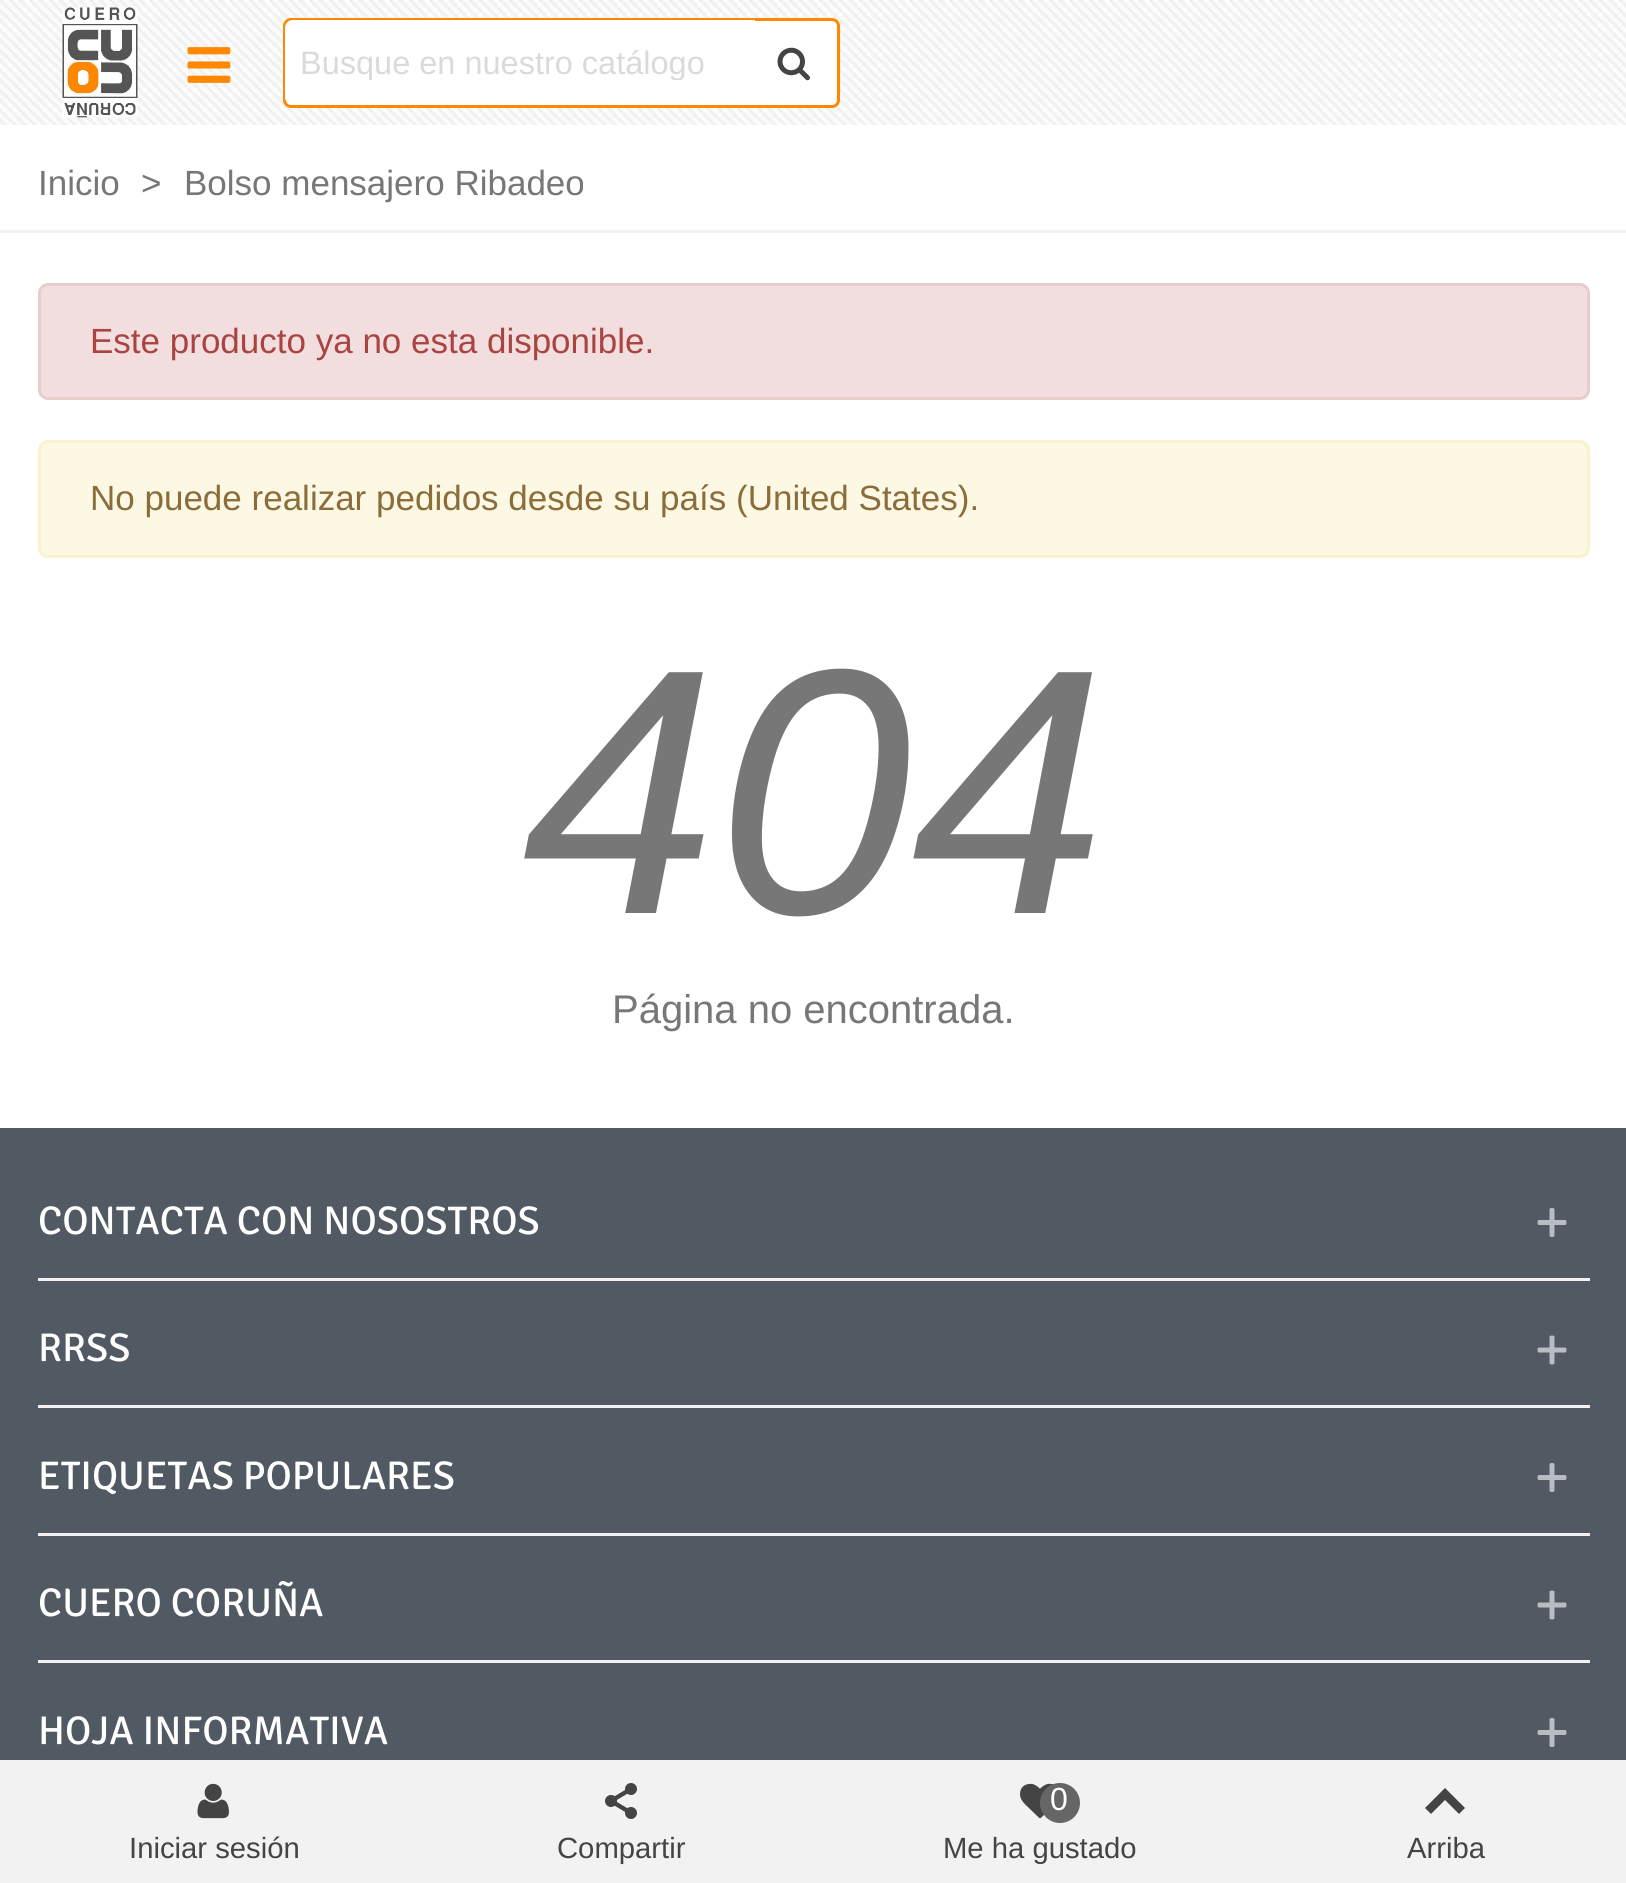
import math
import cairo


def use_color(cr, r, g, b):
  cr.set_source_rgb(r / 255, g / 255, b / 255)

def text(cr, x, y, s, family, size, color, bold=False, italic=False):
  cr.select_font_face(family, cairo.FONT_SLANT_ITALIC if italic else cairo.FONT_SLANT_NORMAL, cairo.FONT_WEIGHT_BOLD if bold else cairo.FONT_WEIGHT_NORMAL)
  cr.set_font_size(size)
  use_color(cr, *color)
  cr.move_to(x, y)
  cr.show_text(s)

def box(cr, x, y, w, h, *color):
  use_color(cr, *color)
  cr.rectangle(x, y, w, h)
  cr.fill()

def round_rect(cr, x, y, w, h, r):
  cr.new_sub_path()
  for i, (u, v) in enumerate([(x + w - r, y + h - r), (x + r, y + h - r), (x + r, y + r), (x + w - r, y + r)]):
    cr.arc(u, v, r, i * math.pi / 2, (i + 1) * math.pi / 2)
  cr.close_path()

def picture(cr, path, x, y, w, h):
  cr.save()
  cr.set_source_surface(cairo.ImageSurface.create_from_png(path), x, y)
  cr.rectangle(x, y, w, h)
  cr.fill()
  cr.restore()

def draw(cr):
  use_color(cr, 255, 255, 255)
  cr.paint()
  picture(cr, "img_01.png", 0, 0, 1626, 125)
  picture(cr, "img_02.png", 62, 7, 76, 111)
  picture(cr, "img_03.png", 187, 47, 44, 36)
  use_color(cr, 255, 255, 255)
  round_rect(cr, 284.5, 19.5, 554, 87, 6.5)
  cr.fill_preserve()
  use_color(cr, 255, 136, 0)
  cr.set_line_width(3)
  cr.stroke()
  use_color(cr, 255, 255, 255)
  cr.new_path()
  cr.move_to(293, 20)
  cr.line_to(755, 20)
  cr.line_to(755, 105)
  cr.line_to(293, 105)
  cr.curve_to(288.5, 105, 285, 101.5, 285, 97)
  cr.line_to(285, 28)
  cr.curve_to(285, 23.5, 288.5, 20, 293, 20)
  cr.close_path()
  cr.fill()
  picture(cr, "img_04.png", 777, 47, 33, 34)
  box(cr, 0, 230, 1626, 3, 242, 242, 242)
  use_color(cr, 242, 222, 222)
  round_rect(cr, 39.5, 284.5, 1549, 114, 8.5)
  cr.fill_preserve()
  use_color(cr, 235, 204, 204)
  cr.stroke()
  use_color(cr, 252, 248, 227)
  round_rect(cr, 39.5, 441.5, 1549, 115, 8.5)
  cr.fill_preserve()
  use_color(cr, 250, 242, 204)
  cr.stroke()
  box(cr, 0, 1128, 1626, 632, 81, 89, 99)
  box(cr, 38, 1278, 1552, 3, 242, 242, 242)
  picture(cr, "img_05.png", 1537, 1208, 30, 29)
  box(cr, 38, 1405, 1552, 3, 242, 242, 242)
  picture(cr, "img_06.png", 1537, 1335, 30, 30)
  box(cr, 38, 1533, 1552, 3, 242, 242, 242)
  picture(cr, "img_05.png", 1537, 1463, 30, 29)
  box(cr, 38, 1660, 1552, 3, 242, 242, 242)
  picture(cr, "img_06.png", 1537, 1590, 30, 30)
  picture(cr, "img_05.png", 1537, 1718, 30, 29)
  box(cr, 0, 1760, 1626, 123, 242, 242, 242)
  picture(cr, "img_07.png", 197, 1783, 32, 36)
  picture(cr, "img_08.png", 605, 1783, 32, 36)
  picture(cr, "img_09.png", 1020, 1783, 34, 36)
  use_color(cr, 102, 102, 102)
  cr.arc(1060, 1803, 20, 0, 2 * math.pi)
  cr.fill()
  use_color(cr, 68, 68, 68)
  cr.new_path()
  cr.move_to(1425, 1808)
  cr.line_to(1445, 1788)
  cr.line_to(1465, 1808)
  cr.line_to(1459, 1814)
  cr.line_to(1445, 1800)
  cr.line_to(1431, 1814)
  cr.close_path()
  cr.fill()
  cr.save()
  cr.rectangle(300, 43, 440, 37)
  cr.clip()
  text(cr, 300, 74, "Busque en nuestro catálogo", "Liberation Sans", 32.5, (218, 218, 218))
  cr.restore()
  text(cr, 38, 195, "Inicio", "Liberation Sans", 35, (119, 119, 119))
  text(cr, 141, 195, ">", "Liberation Sans", 35, (119, 119, 119))
  text(cr, 184, 195, "Bolso mensajero Ribadeo", "Liberation Sans", 35, (119, 119, 119))
  text(cr, 90, 353, "Este producto ya no esta disponible.", "Liberation Sans", 35, (169, 68, 66))
  text(cr, 90, 510, "No puede realizar pedidos desde su país (United States).", "Liberation Sans", 35, (138, 109, 59))
  text(cr, 522, 913, "404", "Liberation Sans", 350, (119, 119, 119), italic=True)
  text(cr, 612, 1023, "Página no encontrada.", "Liberation Sans", 40, (119, 119, 119))
  text(cr, 38, 1234, "CONTACTA CON NOSOSTROS", "Signika Light", 40, (255, 255, 255))
  text(cr, 38, 1361, "RRSS", "Signika Light", 40, (255, 255, 255))
  text(cr, 38, 1489, "ETIQUETAS POPULARES", "Signika Light", 40, (255, 255, 255))
  text(cr, 38, 1616, "CUERO CORUÑA", "Signika Light", 40, (255, 255, 255))
  text(cr, 38, 1744, "HOJA INFORMATIVA", "Signika Light", 40, (255, 255, 255))
  text(cr, 129, 1858, "Iniciar sesión", "Liberation Sans", 29.25, (68, 68, 68))
  text(cr, 557, 1858, "Compartir", "Liberation Sans", 29.25, (68, 68, 68))
  text(cr, 1050, 1810, "0", "Liberation Sans", 32, (255, 255, 255))
  text(cr, 943, 1858, "Me ha gustado", "Liberation Sans", 29.25, (68, 68, 68))
  text(cr, 1407, 1858, "Arriba", "Liberation Sans", 29.25, (68, 68, 68))


surface = cairo.ImageSurface(cairo.FORMAT_RGB24, 1626, 1883)
cr = cairo.Context(surface)
options = cairo.FontOptions()
options.set_hint_metrics(cairo.HINT_METRICS_OFF)
options.set_hint_style(cairo.HINT_STYLE_NONE)
cr.set_font_options(options)
cr.set_miter_limit(4)
draw(cr)
surface.write_to_png("out.png")
